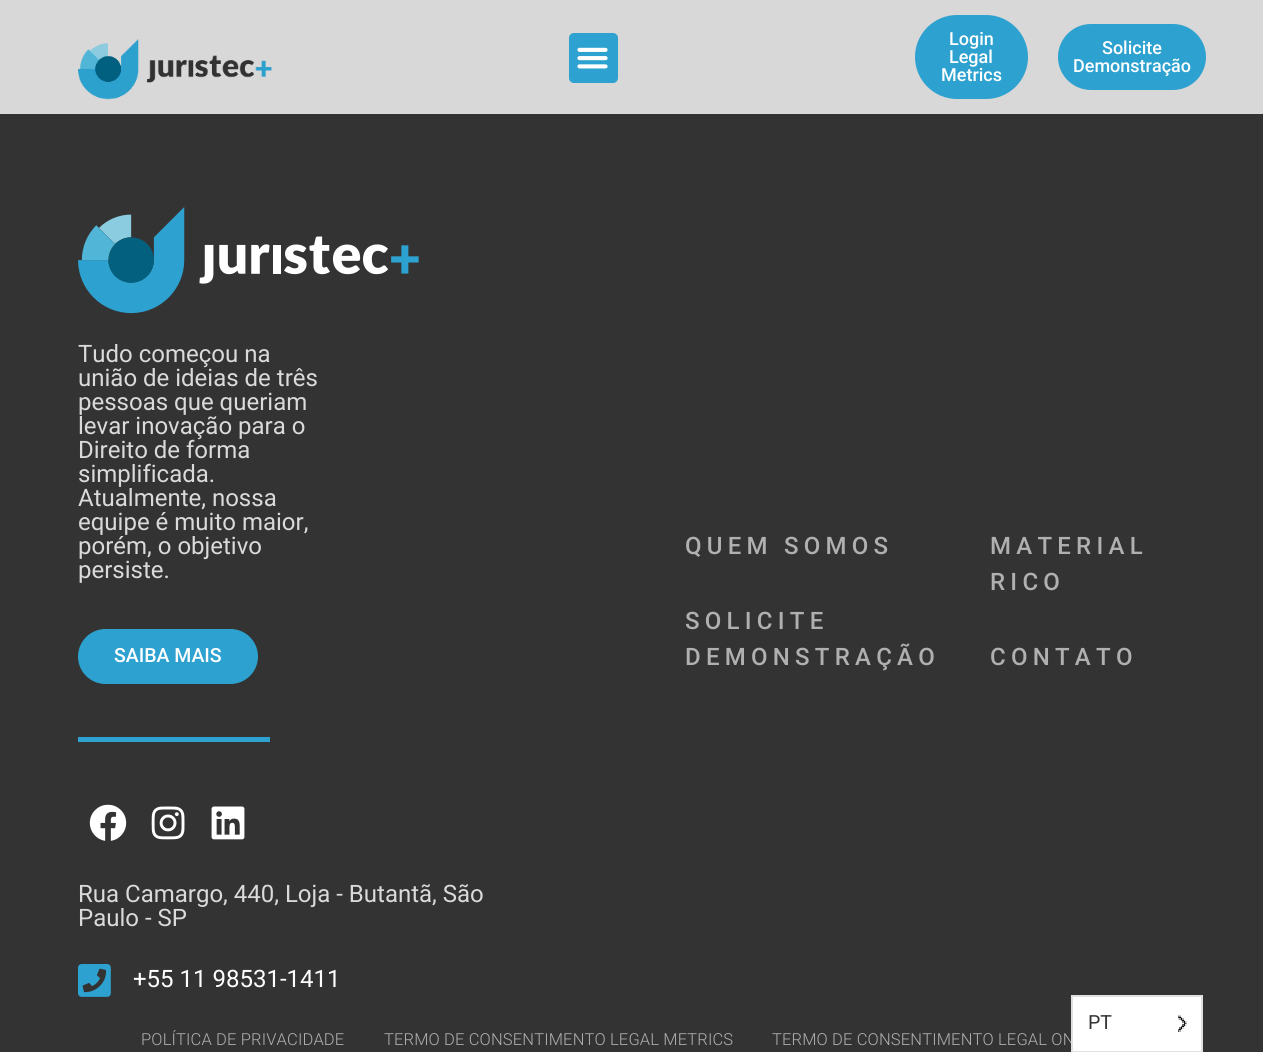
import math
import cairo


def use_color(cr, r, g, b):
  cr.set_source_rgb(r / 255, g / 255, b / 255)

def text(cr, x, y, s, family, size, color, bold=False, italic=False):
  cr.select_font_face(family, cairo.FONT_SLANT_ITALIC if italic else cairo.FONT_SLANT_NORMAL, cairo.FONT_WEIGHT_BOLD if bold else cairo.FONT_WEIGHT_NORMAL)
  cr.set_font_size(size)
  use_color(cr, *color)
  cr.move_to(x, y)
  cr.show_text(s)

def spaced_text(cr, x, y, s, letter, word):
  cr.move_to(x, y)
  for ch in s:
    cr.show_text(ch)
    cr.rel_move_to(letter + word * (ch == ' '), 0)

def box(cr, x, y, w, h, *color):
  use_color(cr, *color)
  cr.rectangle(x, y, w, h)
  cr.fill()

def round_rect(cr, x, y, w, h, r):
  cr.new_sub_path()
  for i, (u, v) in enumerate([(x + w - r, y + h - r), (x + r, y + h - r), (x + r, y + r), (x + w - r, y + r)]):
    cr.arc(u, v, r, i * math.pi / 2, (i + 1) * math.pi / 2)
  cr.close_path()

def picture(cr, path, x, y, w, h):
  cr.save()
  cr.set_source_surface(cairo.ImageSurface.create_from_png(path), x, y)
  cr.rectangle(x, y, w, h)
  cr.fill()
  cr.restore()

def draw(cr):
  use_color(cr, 51, 51, 51)
  cr.paint()
  box(cr, 0, 0, 1263, 113, 216, 216, 216)
  picture(cr, "img_01.png", 78, 39, 194, 61)
  use_color(cr, 45, 161, 207)
  round_rect(cr, 569, 33, 49, 50, 5)
  cr.fill()
  picture(cr, "img_02.png", 577, 47, 31, 22)
  round_rect(cr, 915, 15, 113, 84, 42)
  cr.fill()
  round_rect(cr, 1058, 24, 148, 66, 33)
  cr.fill()
  box(cr, 0, 113, 1263, 1, 218, 218, 218)
  picture(cr, "img_03.png", 78, 207, 341, 107)
  use_color(cr, 45, 161, 207)
  round_rect(cr, 78, 629, 180, 55, 27.5)
  cr.fill()
  box(cr, 78, 737, 192, 5, 45, 161, 207)
  picture(cr, "img_04.png", 89, 804, 38, 37)
  picture(cr, "img_05.png", 151, 806, 34, 34)
  picture(cr, "img_06.png", 211, 806, 34, 34)
  picture(cr, "img_07.png", 78, 964, 33, 33)
  text(cr, 949, 45, "Login", "Roboto Medium", 18, (255, 255, 255))
  text(cr, 949, 63, "Legal", "Roboto Medium", 18, (255, 255, 255))
  text(cr, 941, 81, "Metrics", "Roboto Medium", 18, (255, 255, 255))
  text(cr, 1102, 54, "Solicite", "Roboto Medium", 18, (255, 255, 255))
  text(cr, 1073, 72, "Demonstração", "Roboto Medium", 18, (255, 255, 255))
  text(cr, 78, 362, "Tudo começou na", "Roboto", 24, (218, 218, 218))
  text(cr, 78, 386, "união de ideias de três", "Roboto", 24, (218, 218, 218))
  text(cr, 78, 410, "pessoas que queriam", "Roboto", 24, (218, 218, 218))
  text(cr, 78, 434, "levar inovação para o", "Roboto", 24, (218, 218, 218))
  text(cr, 78, 458, "Direito de forma", "Roboto", 24, (218, 218, 218))
  text(cr, 78, 482, "simplificada.", "Roboto", 24, (218, 218, 218))
  text(cr, 78, 506, "Atualmente, nossa", "Roboto", 24, (218, 218, 218))
  text(cr, 78, 530, "equipe é muito maior,", "Roboto", 24, (218, 218, 218))
  text(cr, 78, 554, "porém, o objetivo", "Roboto", 24, (218, 218, 218))
  text(cr, 78, 578, "persiste.", "Roboto", 24, (218, 218, 218))
  text(cr, 114, 662, "SAIBA MAIS", "Roboto Medium", 19.5, (255, 255, 255))
  text(cr, 78, 902, "Rua Camargo, 440, Loja - Butantã, São", "Roboto", 24, (218, 218, 218))
  text(cr, 78, 926, "Paulo - SP", "Roboto", 24, (218, 218, 218))
  text(cr, 133, 987, "+55 11 98531-1411", "Roboto", 24, (255, 255, 255))
  cr.select_font_face("Roboto Medium")
  use_color(cr, 176, 176, 176)
  spaced_text(cr, 685, 554, "QUEM SOMOS", 5.25, 0)
  spaced_text(cr, 685, 629, "SOLICITE", 5.25, 0)
  spaced_text(cr, 685, 665, "DEMONSTRAÇÃO", 5.25, 0)
  spaced_text(cr, 990, 554, "MATERIAL", 5.25, 0)
  spaced_text(cr, 990, 590, "RICO", 5.25, 0)
  spaced_text(cr, 990, 665, "CONTATO", 5.25, 0)
  cr.select_font_face("Roboto Light")
  cr.set_font_size(16.5)
  spaced_text(cr, 141, 1045, "POLÍTICA DE PRIVACIDADE", 0.15, 0)
  spaced_text(cr, 384, 1045, "TERMO DE CONSENTIMENTO LEGAL METRICS", 0.15, 0)
  spaced_text(cr, 772, 1045, "TERMO DE CONSENTIMENTO LEGAL ON", 0.15, 0)
  use_color(cr, 255, 255, 255)
  cr.rectangle(1072, 996, 130, 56)
  cr.fill_preserve()
  use_color(cr, 224, 224, 224)
  cr.stroke()
  text(cr, 1088, 1029, "PT", "Roboto", 19.5, (51, 51, 51))
  picture(cr, "img_08.png", 1178, 1015, 9, 17)


surface = cairo.ImageSurface(cairo.FORMAT_RGB24, 1263, 1052)
cr = cairo.Context(surface)
options = cairo.FontOptions()
options.set_hint_metrics(cairo.HINT_METRICS_OFF)
options.set_hint_style(cairo.HINT_STYLE_NONE)
cr.set_font_options(options)
cr.set_miter_limit(4)
draw(cr)
surface.write_to_png("out.png")
